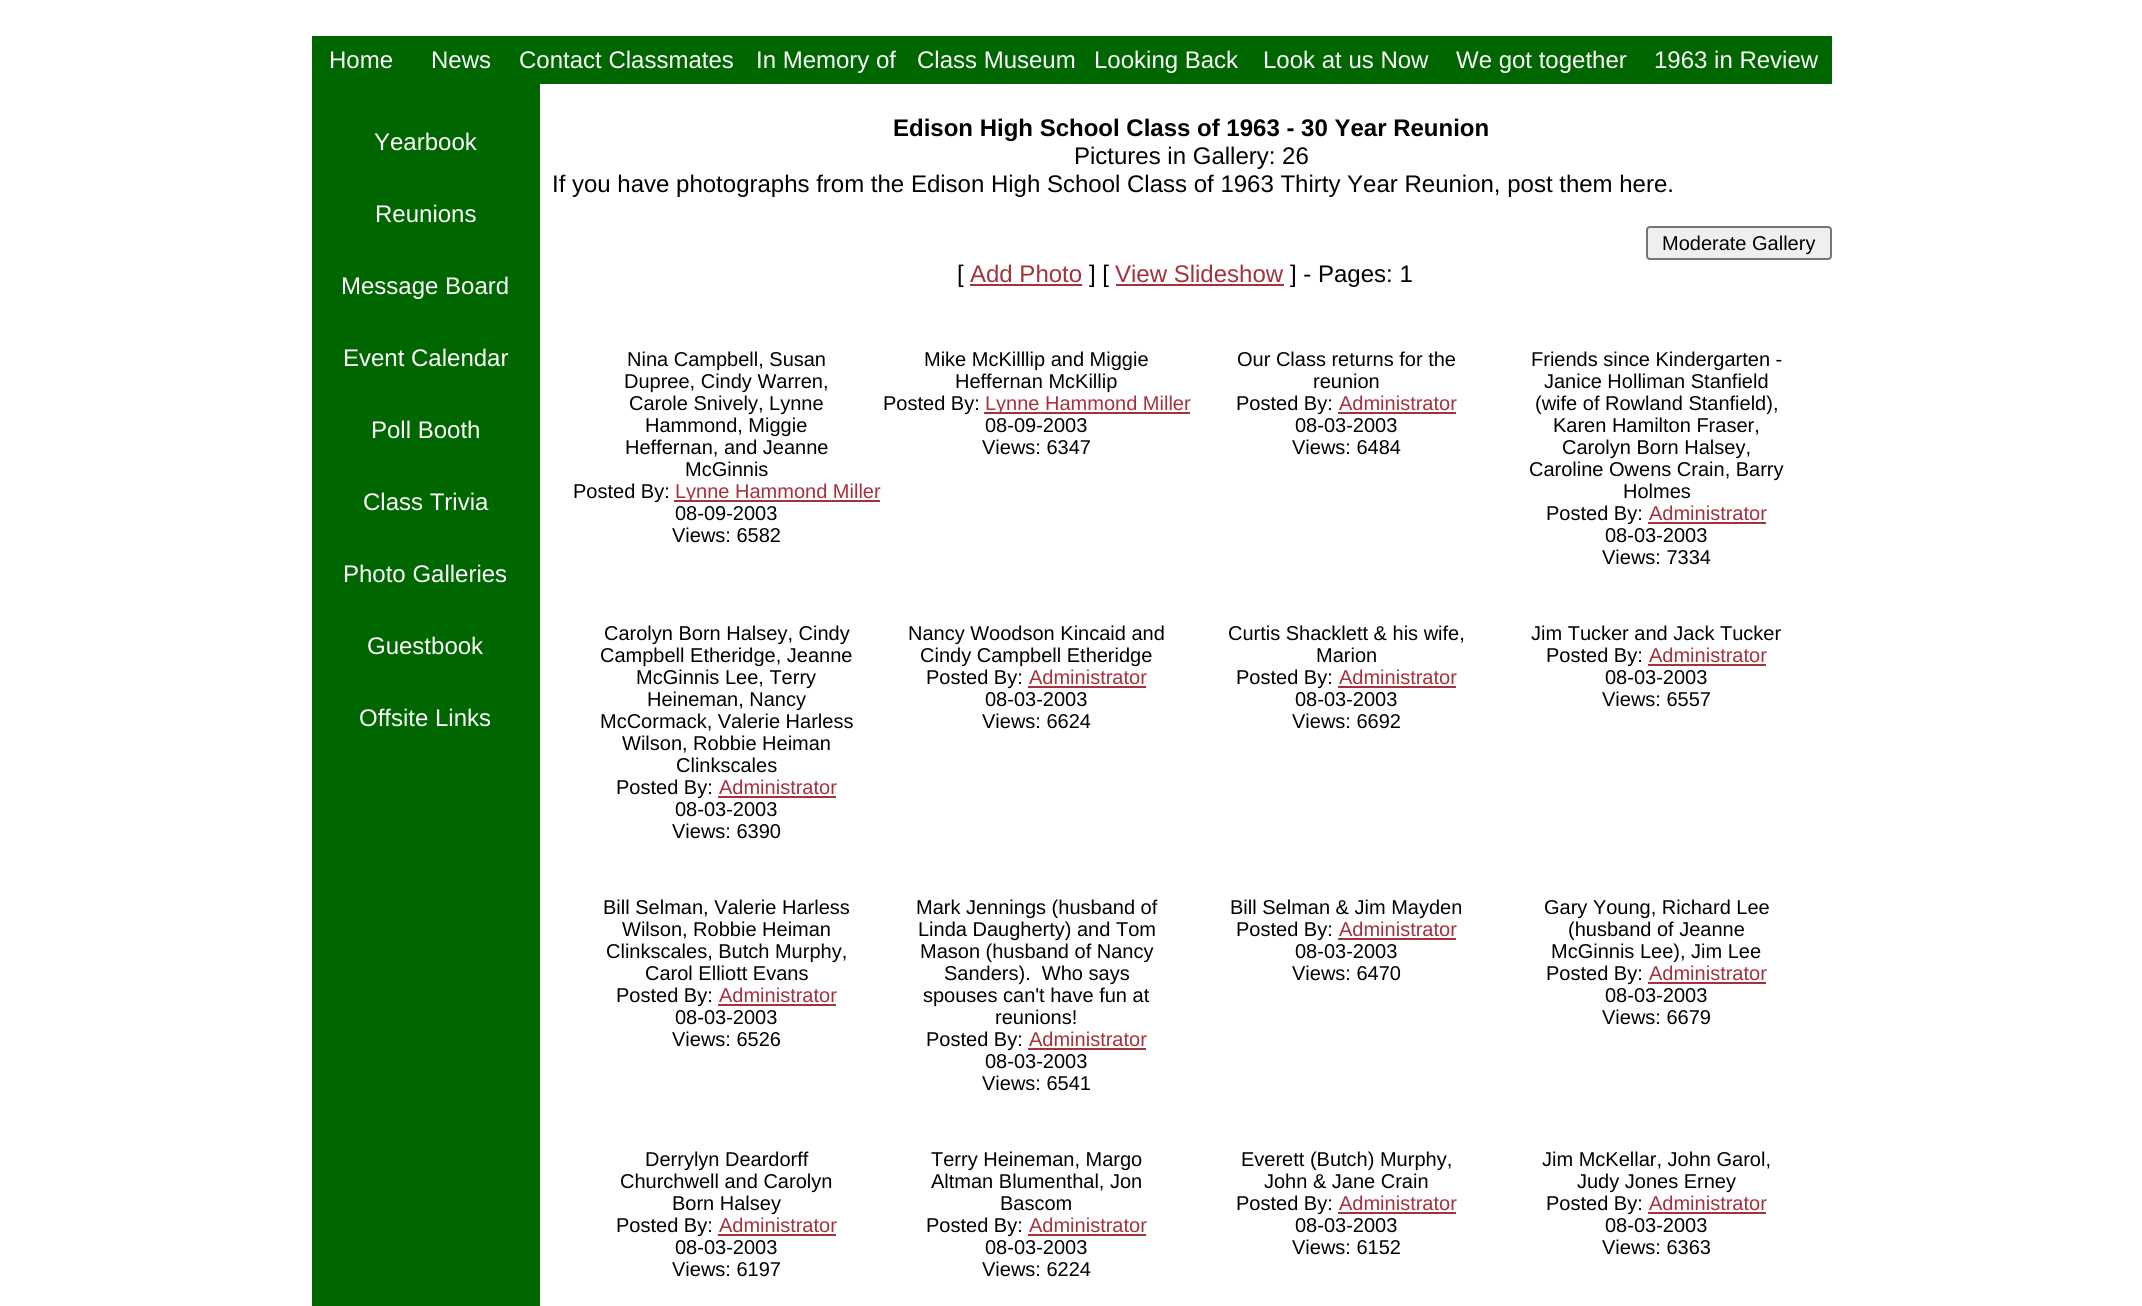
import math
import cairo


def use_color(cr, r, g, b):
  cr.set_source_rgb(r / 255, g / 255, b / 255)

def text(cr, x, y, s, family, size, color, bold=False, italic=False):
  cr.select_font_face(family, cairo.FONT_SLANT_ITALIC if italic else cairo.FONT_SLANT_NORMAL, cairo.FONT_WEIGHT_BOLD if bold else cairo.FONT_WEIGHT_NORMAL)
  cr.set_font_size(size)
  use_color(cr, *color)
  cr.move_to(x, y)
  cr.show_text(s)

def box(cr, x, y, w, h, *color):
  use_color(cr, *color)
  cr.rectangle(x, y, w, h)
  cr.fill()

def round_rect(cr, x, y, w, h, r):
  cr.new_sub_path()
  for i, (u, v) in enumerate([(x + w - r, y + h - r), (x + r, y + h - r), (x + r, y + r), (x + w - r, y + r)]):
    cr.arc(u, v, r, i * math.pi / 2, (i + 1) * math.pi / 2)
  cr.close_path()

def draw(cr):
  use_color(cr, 255, 255, 255)
  cr.paint()
  box(cr, 312, 36, 1520, 48, 0, 102, 0)
  box(cr, 312, 84, 228, 1222, 0, 102, 0)
  use_color(cr, 239, 239, 239)
  round_rect(cr, 1647, 227, 184, 32, 3)
  cr.fill_preserve()
  use_color(cr, 118, 118, 118)
  cr.stroke()
  box(cr, 970, 284, 112, 2, 164, 49, 59)
  box(cr, 1116, 284, 168, 2, 164, 49, 59)
  box(cr, 674, 500, 206, 2, 164, 49, 59)
  box(cr, 984, 412, 206, 2, 164, 49, 59)
  box(cr, 1338, 412, 118, 2, 164, 49, 59)
  box(cr, 1648, 522, 118, 2, 164, 49, 59)
  box(cr, 718, 796, 118, 2, 164, 49, 59)
  box(cr, 1028, 686, 118, 2, 164, 49, 59)
  box(cr, 1338, 686, 118, 2, 164, 49, 59)
  box(cr, 1648, 664, 118, 2, 164, 49, 59)
  box(cr, 718, 1004, 118, 2, 164, 49, 59)
  box(cr, 1028, 1048, 118, 2, 164, 49, 59)
  box(cr, 1338, 938, 118, 2, 164, 49, 59)
  box(cr, 1648, 982, 118, 2, 164, 49, 59)
  box(cr, 718, 1234, 118, 2, 164, 49, 59)
  box(cr, 1028, 1234, 118, 2, 164, 49, 59)
  box(cr, 1338, 1212, 118, 2, 164, 49, 59)
  box(cr, 1648, 1212, 118, 2, 164, 49, 59)
  text(cr, 329, 68, "Home", "Liberation Sans", 24, (255, 255, 255))
  text(cr, 431, 68, "News", "Liberation Sans", 24, (255, 255, 255))
  text(cr, 519, 68, "Contact Classmates", "Liberation Sans", 24, (255, 255, 255))
  text(cr, 756, 68, "In Memory of", "Liberation Sans", 24, (255, 255, 255))
  text(cr, 917, 68, "Class Museum", "Liberation Sans", 24, (255, 255, 255))
  text(cr, 1094, 68, "Looking Back", "Liberation Sans", 24, (255, 255, 255))
  text(cr, 1263, 68, "Look at us Now", "Liberation Sans", 24, (255, 255, 255))
  text(cr, 1456, 68, "We got together", "Liberation Sans", 24, (255, 255, 255))
  text(cr, 1654, 68, "1963 in Review", "Liberation Sans", 24, (255, 255, 255))
  text(cr, 374, 150, "Yearbook", "Liberation Sans", 24, (255, 255, 255))
  text(cr, 375, 222, "Reunions", "Liberation Sans", 24, (255, 255, 255))
  text(cr, 341, 294, "Message Board", "Liberation Sans", 24, (255, 255, 255))
  text(cr, 343, 366, "Event Calendar", "Liberation Sans", 24, (255, 255, 255))
  text(cr, 371, 438, "Poll Booth", "Liberation Sans", 24, (255, 255, 255))
  text(cr, 363, 510, "Class Trivia", "Liberation Sans", 24, (255, 255, 255))
  text(cr, 343, 582, "Photo Galleries", "Liberation Sans", 24, (255, 255, 255))
  text(cr, 367, 654, "Guestbook", "Liberation Sans", 24, (255, 255, 255))
  text(cr, 359, 726, "Offsite Links", "Liberation Sans", 24, (255, 255, 255))
  text(cr, 893, 136, "Edison High School Class of 1963 - 30 Year Reunion", "Liberation Sans", 24, (0, 0, 0), bold=True)
  text(cr, 1074, 164, "Pictures in Gallery: 26", "Liberation Sans", 24, (0, 0, 0))
  text(cr, 552, 192, "If you have photographs from the Edison High School Class of 1963 Thirty Year Reunion, post them here.", "Liberation Sans", 24, (0, 0, 0))
  text(cr, 1662, 250, "Moderate Gallery", "Liberation Sans", 20, (0, 0, 0))
  text(cr, 957, 282, "[", "Liberation Sans", 24, (0, 0, 0))
  text(cr, 970, 282, "Add Photo", "Liberation Sans", 24, (164, 49, 59))
  text(cr, 1089, 282, "] [", "Liberation Sans", 24, (0, 0, 0))
  text(cr, 1115, 282, "View Slideshow", "Liberation Sans", 24, (164, 49, 59))
  text(cr, 1290, 282, "] - Pages: 1", "Liberation Sans", 24, (0, 0, 0))
  text(cr, 627, 366, "Nina Campbell, Susan", "Liberation Sans", 20, (0, 0, 0))
  text(cr, 624, 388, "Dupree, Cindy Warren,", "Liberation Sans", 20, (0, 0, 0))
  text(cr, 629, 410, "Carole Snively, Lynne", "Liberation Sans", 20, (0, 0, 0))
  text(cr, 645, 432, "Hammond, Miggie", "Liberation Sans", 20, (0, 0, 0))
  text(cr, 625, 454, "Heffernan, and Jeanne", "Liberation Sans", 20, (0, 0, 0))
  text(cr, 685, 476, "McGinnis", "Liberation Sans", 20, (0, 0, 0))
  text(cr, 573, 498, "Posted By:", "Liberation Sans", 20, (0, 0, 0))
  text(cr, 675, 498, "Lynne Hammond Miller", "Liberation Sans", 20, (164, 49, 59))
  text(cr, 675, 520, "08-09-2003", "Liberation Sans", 20, (0, 0, 0))
  text(cr, 672, 542, "Views: 6582", "Liberation Sans", 20, (0, 0, 0))
  text(cr, 924, 366, "Mike McKilllip and Miggie", "Liberation Sans", 20, (0, 0, 0))
  text(cr, 955, 388, "Heffernan McKillip", "Liberation Sans", 20, (0, 0, 0))
  text(cr, 883, 410, "Posted By:", "Liberation Sans", 20, (0, 0, 0))
  text(cr, 985, 410, "Lynne Hammond Miller", "Liberation Sans", 20, (164, 49, 59))
  text(cr, 985, 432, "08-09-2003", "Liberation Sans", 20, (0, 0, 0))
  text(cr, 982, 454, "Views: 6347", "Liberation Sans", 20, (0, 0, 0))
  text(cr, 1237, 366, "Our Class returns for the", "Liberation Sans", 20, (0, 0, 0))
  text(cr, 1313, 388, "reunion", "Liberation Sans", 20, (0, 0, 0))
  text(cr, 1236, 410, "Posted By:", "Liberation Sans", 20, (0, 0, 0))
  text(cr, 1339, 410, "Administrator", "Liberation Sans", 20, (164, 49, 59))
  text(cr, 1295, 432, "08-03-2003", "Liberation Sans", 20, (0, 0, 0))
  text(cr, 1292, 454, "Views: 6484", "Liberation Sans", 20, (0, 0, 0))
  text(cr, 1531, 366, "Friends since Kindergarten -", "Liberation Sans", 20, (0, 0, 0))
  text(cr, 1544, 388, "Janice Holliman Stanfield", "Liberation Sans", 20, (0, 0, 0))
  text(cr, 1535, 410, "(wife of Rowland Stanfield),", "Liberation Sans", 20, (0, 0, 0))
  text(cr, 1553, 432, "Karen Hamilton Fraser,", "Liberation Sans", 20, (0, 0, 0))
  text(cr, 1562, 454, "Carolyn Born Halsey,", "Liberation Sans", 20, (0, 0, 0))
  text(cr, 1529, 476, "Caroline Owens Crain, Barry", "Liberation Sans", 20, (0, 0, 0))
  text(cr, 1623, 498, "Holmes", "Liberation Sans", 20, (0, 0, 0))
  text(cr, 1546, 520, "Posted By:", "Liberation Sans", 20, (0, 0, 0))
  text(cr, 1649, 520, "Administrator", "Liberation Sans", 20, (164, 49, 59))
  text(cr, 1605, 542, "08-03-2003", "Liberation Sans", 20, (0, 0, 0))
  text(cr, 1602, 564, "Views: 7334", "Liberation Sans", 20, (0, 0, 0))
  text(cr, 604, 640, "Carolyn Born Halsey, Cindy", "Liberation Sans", 20, (0, 0, 0))
  text(cr, 600, 662, "Campbell Etheridge, Jeanne", "Liberation Sans", 20, (0, 0, 0))
  text(cr, 636, 684, "McGinnis Lee, Terry", "Liberation Sans", 20, (0, 0, 0))
  text(cr, 647, 706, "Heineman, Nancy", "Liberation Sans", 20, (0, 0, 0))
  text(cr, 600, 728, "McCormack, Valerie Harless", "Liberation Sans", 20, (0, 0, 0))
  text(cr, 622, 750, "Wilson, Robbie Heiman", "Liberation Sans", 20, (0, 0, 0))
  text(cr, 676, 772, "Clinkscales", "Liberation Sans", 20, (0, 0, 0))
  text(cr, 616, 794, "Posted By:", "Liberation Sans", 20, (0, 0, 0))
  text(cr, 719, 794, "Administrator", "Liberation Sans", 20, (164, 49, 59))
  text(cr, 675, 816, "08-03-2003", "Liberation Sans", 20, (0, 0, 0))
  text(cr, 672, 838, "Views: 6390", "Liberation Sans", 20, (0, 0, 0))
  text(cr, 908, 640, "Nancy Woodson Kincaid and", "Liberation Sans", 20, (0, 0, 0))
  text(cr, 920, 662, "Cindy Campbell Etheridge", "Liberation Sans", 20, (0, 0, 0))
  text(cr, 926, 684, "Posted By:", "Liberation Sans", 20, (0, 0, 0))
  text(cr, 1029, 684, "Administrator", "Liberation Sans", 20, (164, 49, 59))
  text(cr, 985, 706, "08-03-2003", "Liberation Sans", 20, (0, 0, 0))
  text(cr, 982, 728, "Views: 6624", "Liberation Sans", 20, (0, 0, 0))
  text(cr, 1228, 640, "Curtis Shacklett & his wife,", "Liberation Sans", 20, (0, 0, 0))
  text(cr, 1316, 662, "Marion", "Liberation Sans", 20, (0, 0, 0))
  text(cr, 1236, 684, "Posted By:", "Liberation Sans", 20, (0, 0, 0))
  text(cr, 1339, 684, "Administrator", "Liberation Sans", 20, (164, 49, 59))
  text(cr, 1295, 706, "08-03-2003", "Liberation Sans", 20, (0, 0, 0))
  text(cr, 1292, 728, "Views: 6692", "Liberation Sans", 20, (0, 0, 0))
  text(cr, 1531, 640, "Jim Tucker and Jack Tucker", "Liberation Sans", 20, (0, 0, 0))
  text(cr, 1546, 662, "Posted By:", "Liberation Sans", 20, (0, 0, 0))
  text(cr, 1649, 662, "Administrator", "Liberation Sans", 20, (164, 49, 59))
  text(cr, 1605, 684, "08-03-2003", "Liberation Sans", 20, (0, 0, 0))
  text(cr, 1602, 706, "Views: 6557", "Liberation Sans", 20, (0, 0, 0))
  text(cr, 603, 914, "Bill Selman, Valerie Harless", "Liberation Sans", 20, (0, 0, 0))
  text(cr, 622, 936, "Wilson, Robbie Heiman", "Liberation Sans", 20, (0, 0, 0))
  text(cr, 606, 958, "Clinkscales, Butch Murphy,", "Liberation Sans", 20, (0, 0, 0))
  text(cr, 645, 980, "Carol Elliott Evans", "Liberation Sans", 20, (0, 0, 0))
  text(cr, 616, 1002, "Posted By:", "Liberation Sans", 20, (0, 0, 0))
  text(cr, 719, 1002, "Administrator", "Liberation Sans", 20, (164, 49, 59))
  text(cr, 675, 1024, "08-03-2003", "Liberation Sans", 20, (0, 0, 0))
  text(cr, 672, 1046, "Views: 6526", "Liberation Sans", 20, (0, 0, 0))
  text(cr, 916, 914, "Mark Jennings (husband of", "Liberation Sans", 20, (0, 0, 0))
  text(cr, 918, 936, "Linda Daugherty) and Tom", "Liberation Sans", 20, (0, 0, 0))
  text(cr, 920, 958, "Mason (husband of Nancy", "Liberation Sans", 20, (0, 0, 0))
  text(cr, 944, 980, "Sanders).  Who says", "Liberation Sans", 20, (0, 0, 0))
  text(cr, 923, 1002, "spouses can't have fun at", "Liberation Sans", 20, (0, 0, 0))
  text(cr, 995, 1024, "reunions!", "Liberation Sans", 20, (0, 0, 0))
  text(cr, 926, 1046, "Posted By:", "Liberation Sans", 20, (0, 0, 0))
  text(cr, 1029, 1046, "Administrator", "Liberation Sans", 20, (164, 49, 59))
  text(cr, 985, 1068, "08-03-2003", "Liberation Sans", 20, (0, 0, 0))
  text(cr, 982, 1090, "Views: 6541", "Liberation Sans", 20, (0, 0, 0))
  text(cr, 1230, 914, "Bill Selman & Jim Mayden", "Liberation Sans", 20, (0, 0, 0))
  text(cr, 1236, 936, "Posted By:", "Liberation Sans", 20, (0, 0, 0))
  text(cr, 1339, 936, "Administrator", "Liberation Sans", 20, (164, 49, 59))
  text(cr, 1295, 958, "08-03-2003", "Liberation Sans", 20, (0, 0, 0))
  text(cr, 1292, 980, "Views: 6470", "Liberation Sans", 20, (0, 0, 0))
  text(cr, 1544, 914, "Gary Young, Richard Lee", "Liberation Sans", 20, (0, 0, 0))
  text(cr, 1568, 936, "(husband of Jeanne", "Liberation Sans", 20, (0, 0, 0))
  text(cr, 1551, 958, "McGinnis Lee), Jim Lee", "Liberation Sans", 20, (0, 0, 0))
  text(cr, 1546, 980, "Posted By:", "Liberation Sans", 20, (0, 0, 0))
  text(cr, 1649, 980, "Administrator", "Liberation Sans", 20, (164, 49, 59))
  text(cr, 1605, 1002, "08-03-2003", "Liberation Sans", 20, (0, 0, 0))
  text(cr, 1602, 1024, "Views: 6679", "Liberation Sans", 20, (0, 0, 0))
  text(cr, 645, 1166, "Derrylyn Deardorff", "Liberation Sans", 20, (0, 0, 0))
  text(cr, 620, 1188, "Churchwell and Carolyn", "Liberation Sans", 20, (0, 0, 0))
  text(cr, 672, 1210, "Born Halsey", "Liberation Sans", 20, (0, 0, 0))
  text(cr, 616, 1232, "Posted By:", "Liberation Sans", 20, (0, 0, 0))
  text(cr, 719, 1232, "Administrator", "Liberation Sans", 20, (164, 49, 59))
  text(cr, 675, 1254, "08-03-2003", "Liberation Sans", 20, (0, 0, 0))
  text(cr, 672, 1276, "Views: 6197", "Liberation Sans", 20, (0, 0, 0))
  text(cr, 931, 1166, "Terry Heineman, Margo", "Liberation Sans", 20, (0, 0, 0))
  text(cr, 931, 1188, "Altman Blumenthal, Jon", "Liberation Sans", 20, (0, 0, 0))
  text(cr, 1000, 1210, "Bascom", "Liberation Sans", 20, (0, 0, 0))
  text(cr, 926, 1232, "Posted By:", "Liberation Sans", 20, (0, 0, 0))
  text(cr, 1029, 1232, "Administrator", "Liberation Sans", 20, (164, 49, 59))
  text(cr, 985, 1254, "08-03-2003", "Liberation Sans", 20, (0, 0, 0))
  text(cr, 982, 1276, "Views: 6224", "Liberation Sans", 20, (0, 0, 0))
  text(cr, 1241, 1166, "Everett (Butch) Murphy,", "Liberation Sans", 20, (0, 0, 0))
  text(cr, 1264, 1188, "John & Jane Crain", "Liberation Sans", 20, (0, 0, 0))
  text(cr, 1236, 1210, "Posted By:", "Liberation Sans", 20, (0, 0, 0))
  text(cr, 1339, 1210, "Administrator", "Liberation Sans", 20, (164, 49, 59))
  text(cr, 1295, 1232, "08-03-2003", "Liberation Sans", 20, (0, 0, 0))
  text(cr, 1292, 1254, "Views: 6152", "Liberation Sans", 20, (0, 0, 0))
  text(cr, 1542, 1166, "Jim McKellar, John Garol,", "Liberation Sans", 20, (0, 0, 0))
  text(cr, 1577, 1188, "Judy Jones Erney", "Liberation Sans", 20, (0, 0, 0))
  text(cr, 1546, 1210, "Posted By:", "Liberation Sans", 20, (0, 0, 0))
  text(cr, 1649, 1210, "Administrator", "Liberation Sans", 20, (164, 49, 59))
  text(cr, 1605, 1232, "08-03-2003", "Liberation Sans", 20, (0, 0, 0))
  text(cr, 1602, 1254, "Views: 6363", "Liberation Sans", 20, (0, 0, 0))


surface = cairo.ImageSurface(cairo.FORMAT_RGB24, 2142, 1306)
cr = cairo.Context(surface)
options = cairo.FontOptions()
options.set_hint_metrics(cairo.HINT_METRICS_OFF)
options.set_hint_style(cairo.HINT_STYLE_NONE)
cr.set_font_options(options)
cr.set_miter_limit(4)
draw(cr)
surface.write_to_png("out.png")
